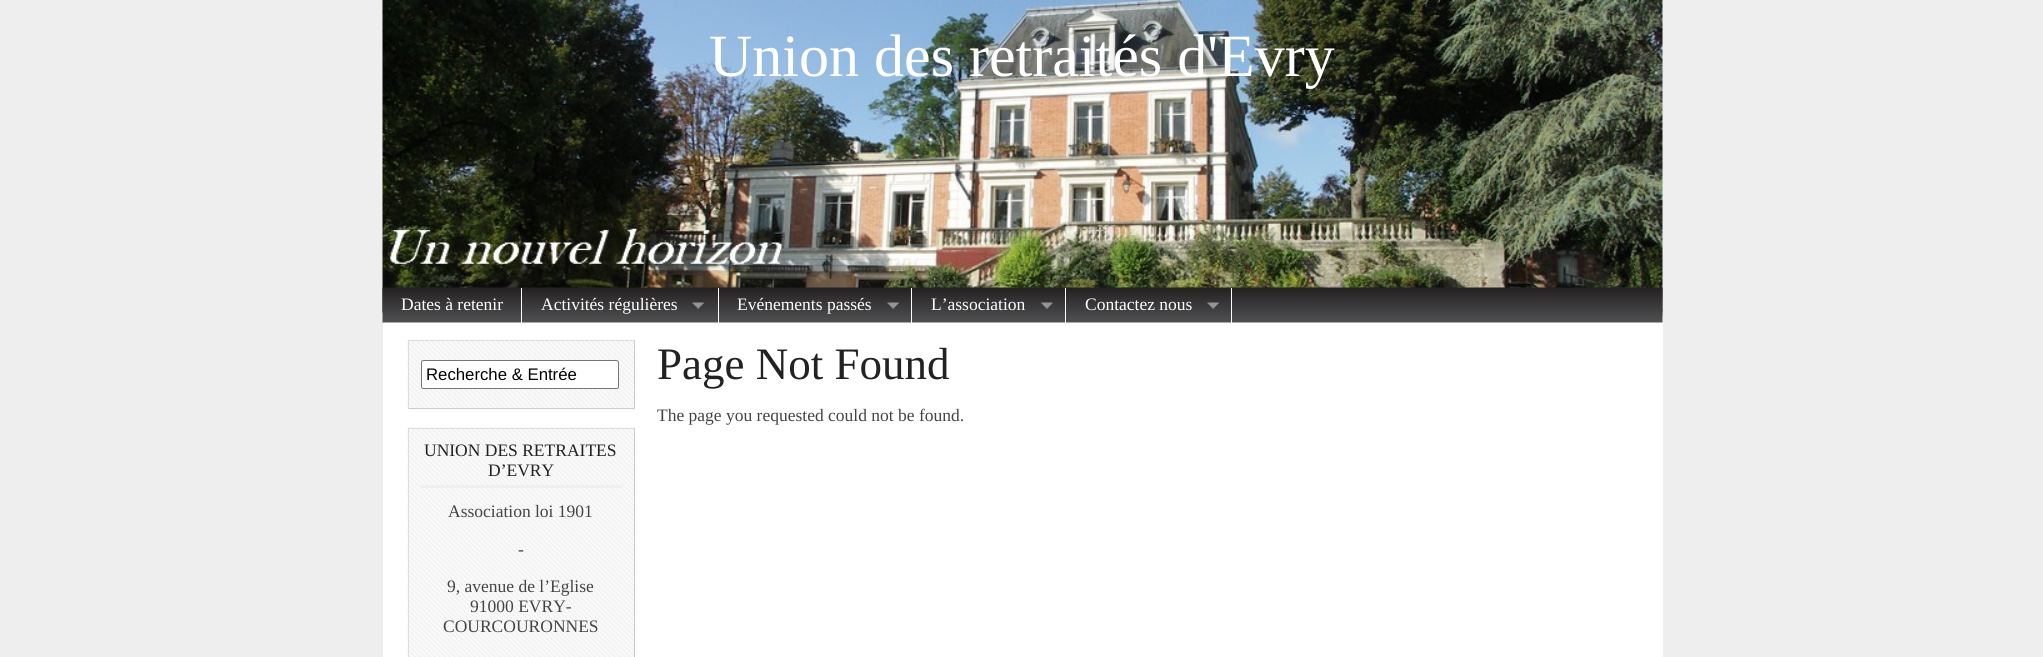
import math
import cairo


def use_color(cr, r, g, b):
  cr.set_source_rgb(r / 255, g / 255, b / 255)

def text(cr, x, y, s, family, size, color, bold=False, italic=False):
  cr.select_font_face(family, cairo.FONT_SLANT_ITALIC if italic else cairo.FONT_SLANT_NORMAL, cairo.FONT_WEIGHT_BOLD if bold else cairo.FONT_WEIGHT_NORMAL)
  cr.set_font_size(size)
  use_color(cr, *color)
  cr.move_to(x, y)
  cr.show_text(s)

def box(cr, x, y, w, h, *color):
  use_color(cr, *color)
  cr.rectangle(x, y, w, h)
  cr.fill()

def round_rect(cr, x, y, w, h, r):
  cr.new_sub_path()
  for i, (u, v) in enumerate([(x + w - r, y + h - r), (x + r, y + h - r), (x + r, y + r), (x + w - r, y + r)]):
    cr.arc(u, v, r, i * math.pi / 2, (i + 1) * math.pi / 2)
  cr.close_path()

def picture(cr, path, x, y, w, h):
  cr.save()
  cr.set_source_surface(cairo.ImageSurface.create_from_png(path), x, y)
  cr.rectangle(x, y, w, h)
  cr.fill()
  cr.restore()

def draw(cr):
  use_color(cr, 238, 238, 238)
  cr.paint()
  picture(cr, "img_01.png", 382, 0, 1281, 313)
  box(cr, 383, 316, 1280, 341, 255, 255, 255)
  box(cr, 1662, 313, 1, 3, 204, 204, 204)
  picture(cr, "img_02.png", 382, 287, 1281, 36)
  box(cr, 521, 288, 1, 35, 255, 255, 255)
  box(cr, 718, 288, 1, 35, 255, 255, 255)
  picture(cr, "img_03.png", 692, 302, 12, 7)
  box(cr, 911, 288, 1, 35, 255, 255, 255)
  picture(cr, "img_03.png", 887, 302, 12, 7)
  box(cr, 1065, 288, 1, 35, 255, 255, 255)
  picture(cr, "img_04.png", 1041, 302, 12, 7)
  box(cr, 1231, 288, 1, 35, 255, 255, 255)
  picture(cr, "img_03.png", 1207, 302, 12, 7)
  picture(cr, "img_05.png", 407, 340, 227, 69)
  box(cr, 408, 340, 227, 1, 221, 221, 221)
  box(cr, 634, 340, 1, 69, 204, 204, 204)
  box(cr, 408, 408, 227, 1, 204, 204, 204)
  box(cr, 408, 340, 1, 69, 221, 221, 221)
  use_color(cr, 255, 255, 255)
  round_rect(cr, 421.5, 360.5, 197, 28, 2)
  cr.fill_preserve()
  use_color(cr, 118, 118, 118)
  cr.set_line_width(1)
  cr.stroke()
  picture(cr, "img_06.png", 407, 427, 228, 230)
  box(cr, 408, 428, 227, 1, 221, 221, 221)
  box(cr, 634, 428, 1, 229, 204, 204, 204)
  box(cr, 408, 428, 1, 229, 221, 221, 221)
  box(cr, 421, 485, 201, 3, 239, 239, 239)
  text(cr, 709, 76, "Union des retraités d'Evry", "Liberation Serif", 60, (255, 255, 255))
  text(cr, 401, 310, "Dates à retenir", "Liberation Serif", 17.5, (255, 255, 255))
  text(cr, 541, 310, "Activités régulières", "Liberation Serif", 17.5, (255, 255, 255))
  text(cr, 737, 310, "Evénements passés", "Liberation Serif", 17.5, (255, 255, 255))
  text(cr, 931, 310, "L’association", "Liberation Serif", 17.5, (255, 255, 255))
  text(cr, 1085, 310, "Contactez nous", "Liberation Serif", 17.5, (255, 255, 255))
  text(cr, 426, 380, "Recherche & Entrée", "Liberation Sans", 16.75, (0, 0, 0))
  text(cr, 424, 456, "UNION DES RETRAITES", "Liberation Serif", 17.5, (34, 34, 34))
  text(cr, 488, 476, "D’EVRY", "Liberation Serif", 17.5, (34, 34, 34))
  text(cr, 448, 517, "Association loi 1901", "Liberation Serif", 17.5, (68, 68, 68))
  text(cr, 518, 555, "-", "Liberation Serif", 17.5, (68, 68, 68))
  text(cr, 447, 592, "9, avenue de l’Eglise", "Liberation Serif", 17.5, (68, 68, 68))
  text(cr, 470, 612, "91000 EVRY-", "Liberation Serif", 17.5, (68, 68, 68))
  text(cr, 443, 632, "COURCOURONNES", "Liberation Serif", 17.5, (68, 68, 68))
  text(cr, 657, 379, "Page Not Found", "Liberation Serif", 45, (34, 34, 34))
  text(cr, 657, 421, "The page you requested could not be found.", "Liberation Serif", 17.5, (68, 68, 68))


surface = cairo.ImageSurface(cairo.FORMAT_RGB24, 2043, 657)
cr = cairo.Context(surface)
options = cairo.FontOptions()
options.set_hint_metrics(cairo.HINT_METRICS_OFF)
options.set_hint_style(cairo.HINT_STYLE_NONE)
cr.set_font_options(options)
cr.set_miter_limit(4)
draw(cr)
surface.write_to_png("out.png")
